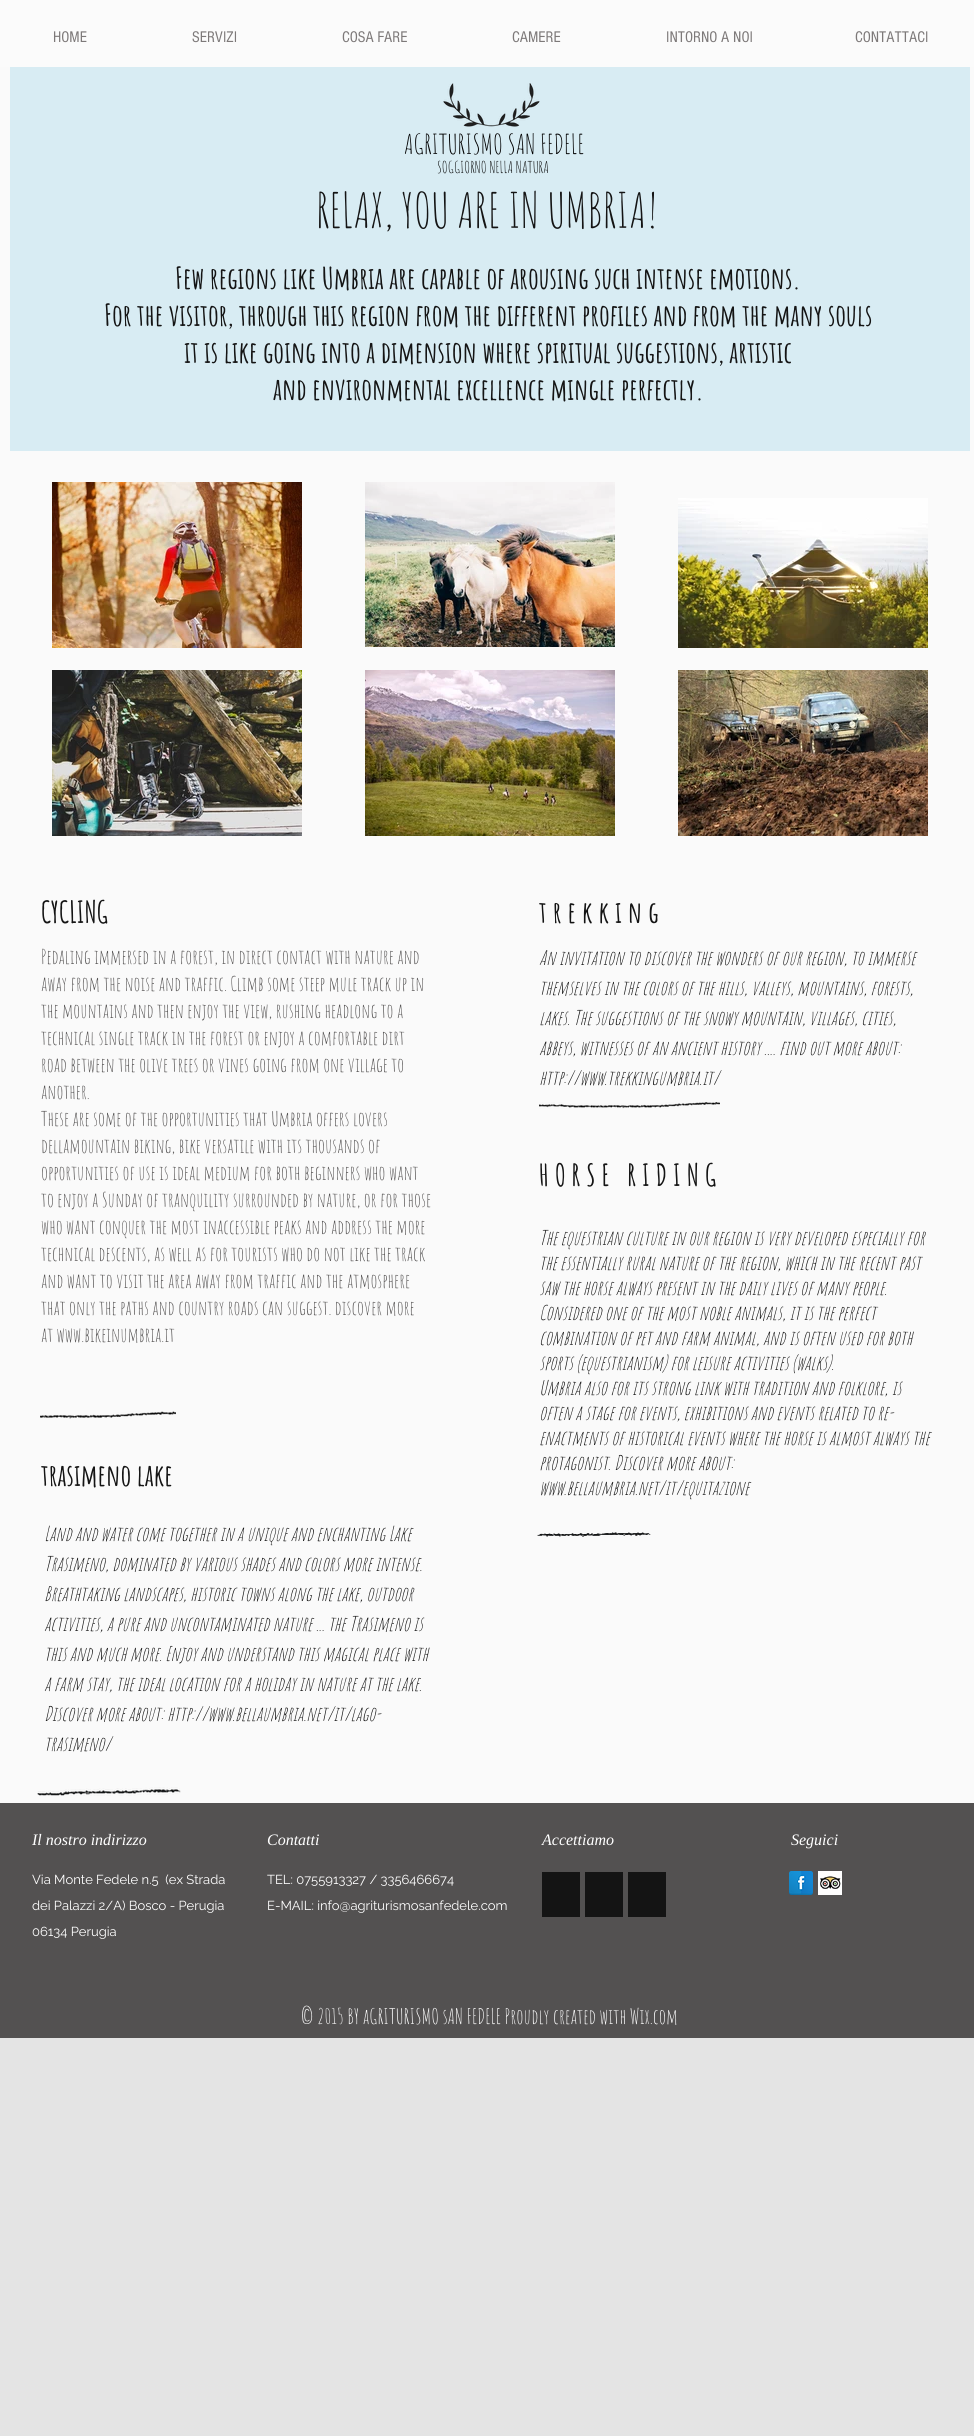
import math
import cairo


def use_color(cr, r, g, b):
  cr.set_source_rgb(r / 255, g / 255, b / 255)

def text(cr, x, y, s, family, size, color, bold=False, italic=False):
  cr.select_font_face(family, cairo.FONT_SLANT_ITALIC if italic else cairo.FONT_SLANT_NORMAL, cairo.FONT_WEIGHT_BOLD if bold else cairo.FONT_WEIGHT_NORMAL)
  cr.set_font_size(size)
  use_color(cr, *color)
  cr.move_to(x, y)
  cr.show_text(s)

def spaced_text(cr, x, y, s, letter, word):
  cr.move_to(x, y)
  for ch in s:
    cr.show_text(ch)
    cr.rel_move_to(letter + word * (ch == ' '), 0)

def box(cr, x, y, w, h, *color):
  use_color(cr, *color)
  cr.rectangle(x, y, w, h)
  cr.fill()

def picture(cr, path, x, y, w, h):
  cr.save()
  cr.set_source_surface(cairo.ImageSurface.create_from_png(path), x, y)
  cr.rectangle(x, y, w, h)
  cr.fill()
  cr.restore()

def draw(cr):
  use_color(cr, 228, 228, 228)
  cr.paint()
  box(cr, 0, 0, 974, 67, 251, 251, 251)
  box(cr, 0, 67, 974, 1736, 250, 250, 250)
  box(cr, 10, 67, 960, 384, 216, 236, 243)
  picture(cr, "img_01.png", 443, 83, 97, 44)
  picture(cr, "img_02.png", 52, 482, 250, 166)
  picture(cr, "img_03.png", 365, 482, 250, 165)
  picture(cr, "img_04.png", 678, 498, 250, 150)
  picture(cr, "img_05.png", 52, 670, 250, 166)
  picture(cr, "img_06.png", 365, 670, 250, 166)
  picture(cr, "img_07.png", 678, 670, 250, 166)
  picture(cr, "img_08.png", 539, 1102, 181, 7)
  picture(cr, "img_09.png", 40, 1411, 136, 8)
  picture(cr, "img_10.png", 537, 1532, 114, 5)
  picture(cr, "img_11.png", 37, 1787, 144, 9)
  box(cr, 0, 1803, 974, 235, 83, 81, 81)
  box(cr, 542, 1872, 38, 45, 20, 20, 20)
  box(cr, 585, 1872, 38, 45, 20, 20, 20)
  box(cr, 628, 1872, 38, 45, 20, 20, 20)
  picture(cr, "img_12.png", 789, 1871, 24, 24)
  picture(cr, "img_13.png", 818, 1871, 24, 24)
  text(cr, 53, 42, "HOME", "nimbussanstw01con", 16, (125, 121, 121))
  text(cr, 192, 42, "SERVIZI", "nimbussanstw01con", 16, (125, 121, 121))
  text(cr, 342, 42, "COSA FARE", "nimbussanstw01con", 16, (125, 121, 121))
  text(cr, 512, 42, "CAMERE", "nimbussanstw01con", 16, (125, 121, 121))
  text(cr, 666, 42, "INTORNO A NOI", "nimbussanstw01con", 16, (125, 121, 121))
  text(cr, 855, 42, "CONTATTACI", "nimbussanstw01con", 16, (125, 121, 121))
  text(cr, 404, 154, "AGRITURISMO SAN FEDELE", "Amatic SC", 27, (0, 0, 0))
  text(cr, 437, 173, "SOGGIORNO NELLA NATURA", "Amatic SC", 16, (0, 0, 0))
  text(cr, 316, 228, "RELAX, YOU ARE IN UMBRIA!", "Amatic SC", 48, (20, 20, 20))
  text(cr, 175, 289, "Few regions like Umbria are capable of arousing such intense emotions.", "Amatic SC", 30, (20, 20, 20), bold=True)
  text(cr, 104, 326, "For the visitor, through this region from the different profiles and from the many souls", "Amatic SC", 30, (20, 20, 20), bold=True)
  text(cr, 184, 363, "it is like going into a dimension where spiritual suggestions, artistic", "Amatic SC", 30, (20, 20, 20), bold=True)
  text(cr, 273, 400, "and environmental excellence mingle perfectly.", "Amatic SC", 30, (20, 20, 20), bold=True)
  text(cr, 41, 923, "CYCLING", "Amatic SC", 30, (20, 20, 20), bold=True)
  spaced_text(cr, 539, 923, "trekking", 6, 0)
  text(cr, 41, 964, "Pedaling immersed in a forest, in direct contact with nature and", "Amatic SC", 20, (83, 81, 81))
  text(cr, 41, 991, "away from the noise and traffic. Climb some steep mule track up in", "Amatic SC", 20, (83, 81, 81))
  text(cr, 41, 1018, "the mountains and then enjoy the view, rushing headlong to a", "Amatic SC", 20, (83, 81, 81))
  text(cr, 41, 1045, "technical single track in the forest or enjoy a comfortable dirt", "Amatic SC", 20, (83, 81, 81))
  text(cr, 41, 1072, "road between the olive trees or vines going from one village to", "Amatic SC", 20, (83, 81, 81))
  text(cr, 41, 1099, "another.", "Amatic SC", 20, (83, 81, 81))
  text(cr, 41, 1126, "These are some of the opportunities that Umbria offers lovers", "Amatic SC", 20, (83, 81, 81))
  text(cr, 41, 1153, "dellamountain biking, bike versatile with its thousands of", "Amatic SC", 20, (83, 81, 81))
  text(cr, 41, 1180, "opportunities of use is ideal medium for both beginners who want", "Amatic SC", 20, (83, 81, 81))
  text(cr, 41, 1207, "to enjoy a Sunday of tranquility surrounded by nature, or for those", "Amatic SC", 20, (83, 81, 81))
  text(cr, 41, 1234, "who want conquer the most inaccessible peaks and address the more", "Amatic SC", 20, (83, 81, 81))
  text(cr, 41, 1261, "technical descents, as well as for tourists who do not like the track", "Amatic SC", 20, (83, 81, 81))
  text(cr, 41, 1288, "and want to visit the area away from traffic and the atmosphere", "Amatic SC", 20, (83, 81, 81))
  text(cr, 41, 1315, "that only the paths and country roads can suggest. discover more", "Amatic SC", 20, (83, 81, 81))
  text(cr, 41, 1342, "at www.bikeinumbria.it", "Amatic SC", 20, (83, 81, 81))
  text(cr, 539, 965, "An invitation to discover the wonders of our region, to immerse", "Amatic SC", 20, (20, 20, 20), italic=True)
  text(cr, 539, 995, "themselves in the colors of the hills, valleys, mountains, forests,", "Amatic SC", 20, (20, 20, 20), italic=True)
  text(cr, 539, 1025, "lakes. The suggestions of the snowy mountain, villages, cities,", "Amatic SC", 20, (20, 20, 20), italic=True)
  text(cr, 539, 1055, "abbeys, witnesses of an ancient history .... find out more about:", "Amatic SC", 20, (20, 20, 20), italic=True)
  text(cr, 539, 1085, "http://www.trekkingumbria.it/", "Amatic SC", 20, (20, 20, 20), italic=True)
  cr.select_font_face("Amatic SC", cairo.FONT_SLANT_NORMAL, cairo.FONT_WEIGHT_BOLD)
  cr.set_font_size(30)
  spaced_text(cr, 539, 1186, "HORSE RIDING", 6, 0)
  text(cr, 539, 1245, "The equestrian culture in our region is very developed especially for", "Amatic SC", 20, (20, 20, 20), italic=True)
  text(cr, 539, 1270, "the essentially rural nature of the region, which in the recent past", "Amatic SC", 20, (20, 20, 20), italic=True)
  text(cr, 539, 1295, "saw the horse always present in the daily lives of many people.", "Amatic SC", 20, (20, 20, 20), italic=True)
  text(cr, 539, 1320, "Considered one of the most noble animals, it is the perfect", "Amatic SC", 20, (20, 20, 20), italic=True)
  text(cr, 539, 1345, "combination of pet and farm animal, and is often used for both", "Amatic SC", 20, (20, 20, 20), italic=True)
  text(cr, 539, 1370, "sports (equestrianism) for leisure activities (walks).", "Amatic SC", 20, (20, 20, 20), italic=True)
  text(cr, 539, 1395, "Umbria also for its strong link with tradition and folklore, is", "Amatic SC", 20, (20, 20, 20), italic=True)
  text(cr, 539, 1420, "often a stage for events, exhibitions and events related to re-", "Amatic SC", 20, (20, 20, 20), italic=True)
  text(cr, 539, 1445, "enactments of historical events where the horse is almost always the", "Amatic SC", 20, (20, 20, 20), italic=True)
  text(cr, 539, 1470, "protagonist. Discover more about:", "Amatic SC", 20, (20, 20, 20), italic=True)
  text(cr, 539, 1495, "www.bellaumbria.net/it/equitazione", "Amatic SC", 20, (20, 20, 20), italic=True)
  text(cr, 41, 1486, "trasimeno lake", "Amatic SC", 30, (20, 20, 20), bold=True)
  text(cr, 44, 1541, "Land and water come together in a unique and enchanting Lake", "Amatic SC", 20, (20, 20, 20), italic=True)
  text(cr, 44, 1571, "Trasimeno, dominated by various shades and colors more intense.", "Amatic SC", 20, (20, 20, 20), italic=True)
  text(cr, 44, 1601, "Breathtaking landscapes, historic towns along the lake, outdoor", "Amatic SC", 20, (20, 20, 20), italic=True)
  text(cr, 44, 1631, "activities, a pure and uncontaminated nature ... the Trasimeno is", "Amatic SC", 20, (20, 20, 20), italic=True)
  text(cr, 44, 1661, "this and much more. Enjoy and understand this magical place with", "Amatic SC", 20, (20, 20, 20), italic=True)
  text(cr, 44, 1691, "a farm stay, the ideal location for a holiday in nature at the lake.", "Amatic SC", 20, (20, 20, 20), italic=True)
  text(cr, 44, 1721, "Discover more about: http://www.bellaumbria.net/it/lago-", "Amatic SC", 20, (20, 20, 20), italic=True)
  text(cr, 44, 1751, "trasimeno/", "Amatic SC", 20, (20, 20, 20), italic=True)
  text(cr, 32, 1845, "Il nostro indirizzo", "Liberation Serif", 16, (255, 255, 255), italic=True)
  text(cr, 267, 1845, "Contatti", "Liberation Serif", 16, (255, 255, 255), italic=True)
  text(cr, 542, 1845, "Accettiamo", "Liberation Serif", 16, (255, 255, 255), italic=True)
  text(cr, 791, 1845, "Seguici", "Liberation Serif", 16, (255, 255, 255), italic=True)
  text(cr, 32, 1884, "Via Monte Fedele n.5  (ex Strada", "Raleway", 13, (255, 255, 255))
  text(cr, 32, 1910, "dei Palazzi 2/A) Bosco - Perugia", "Raleway", 13, (255, 255, 255))
  text(cr, 32, 1936, "06134 Perugia", "Raleway", 13, (255, 255, 255))
  text(cr, 267, 1884, "TEL: 0755913327 / 3356466674", "Raleway", 13, (255, 255, 255))
  text(cr, 267, 1910, "E-MAIL: info@agriturismosanfedele.com", "Raleway", 13, (255, 255, 255))
  text(cr, 301, 2024, "© 2015 BY aGRITURISMO sAN FEDELE Proudly created with Wix.com", "Amatic SC", 21, (255, 255, 255))


surface = cairo.ImageSurface(cairo.FORMAT_RGB24, 974, 2436)
cr = cairo.Context(surface)
options = cairo.FontOptions()
options.set_hint_metrics(cairo.HINT_METRICS_OFF)
options.set_hint_style(cairo.HINT_STYLE_NONE)
cr.set_font_options(options)
cr.set_miter_limit(4)
draw(cr)
surface.write_to_png("out.png")
